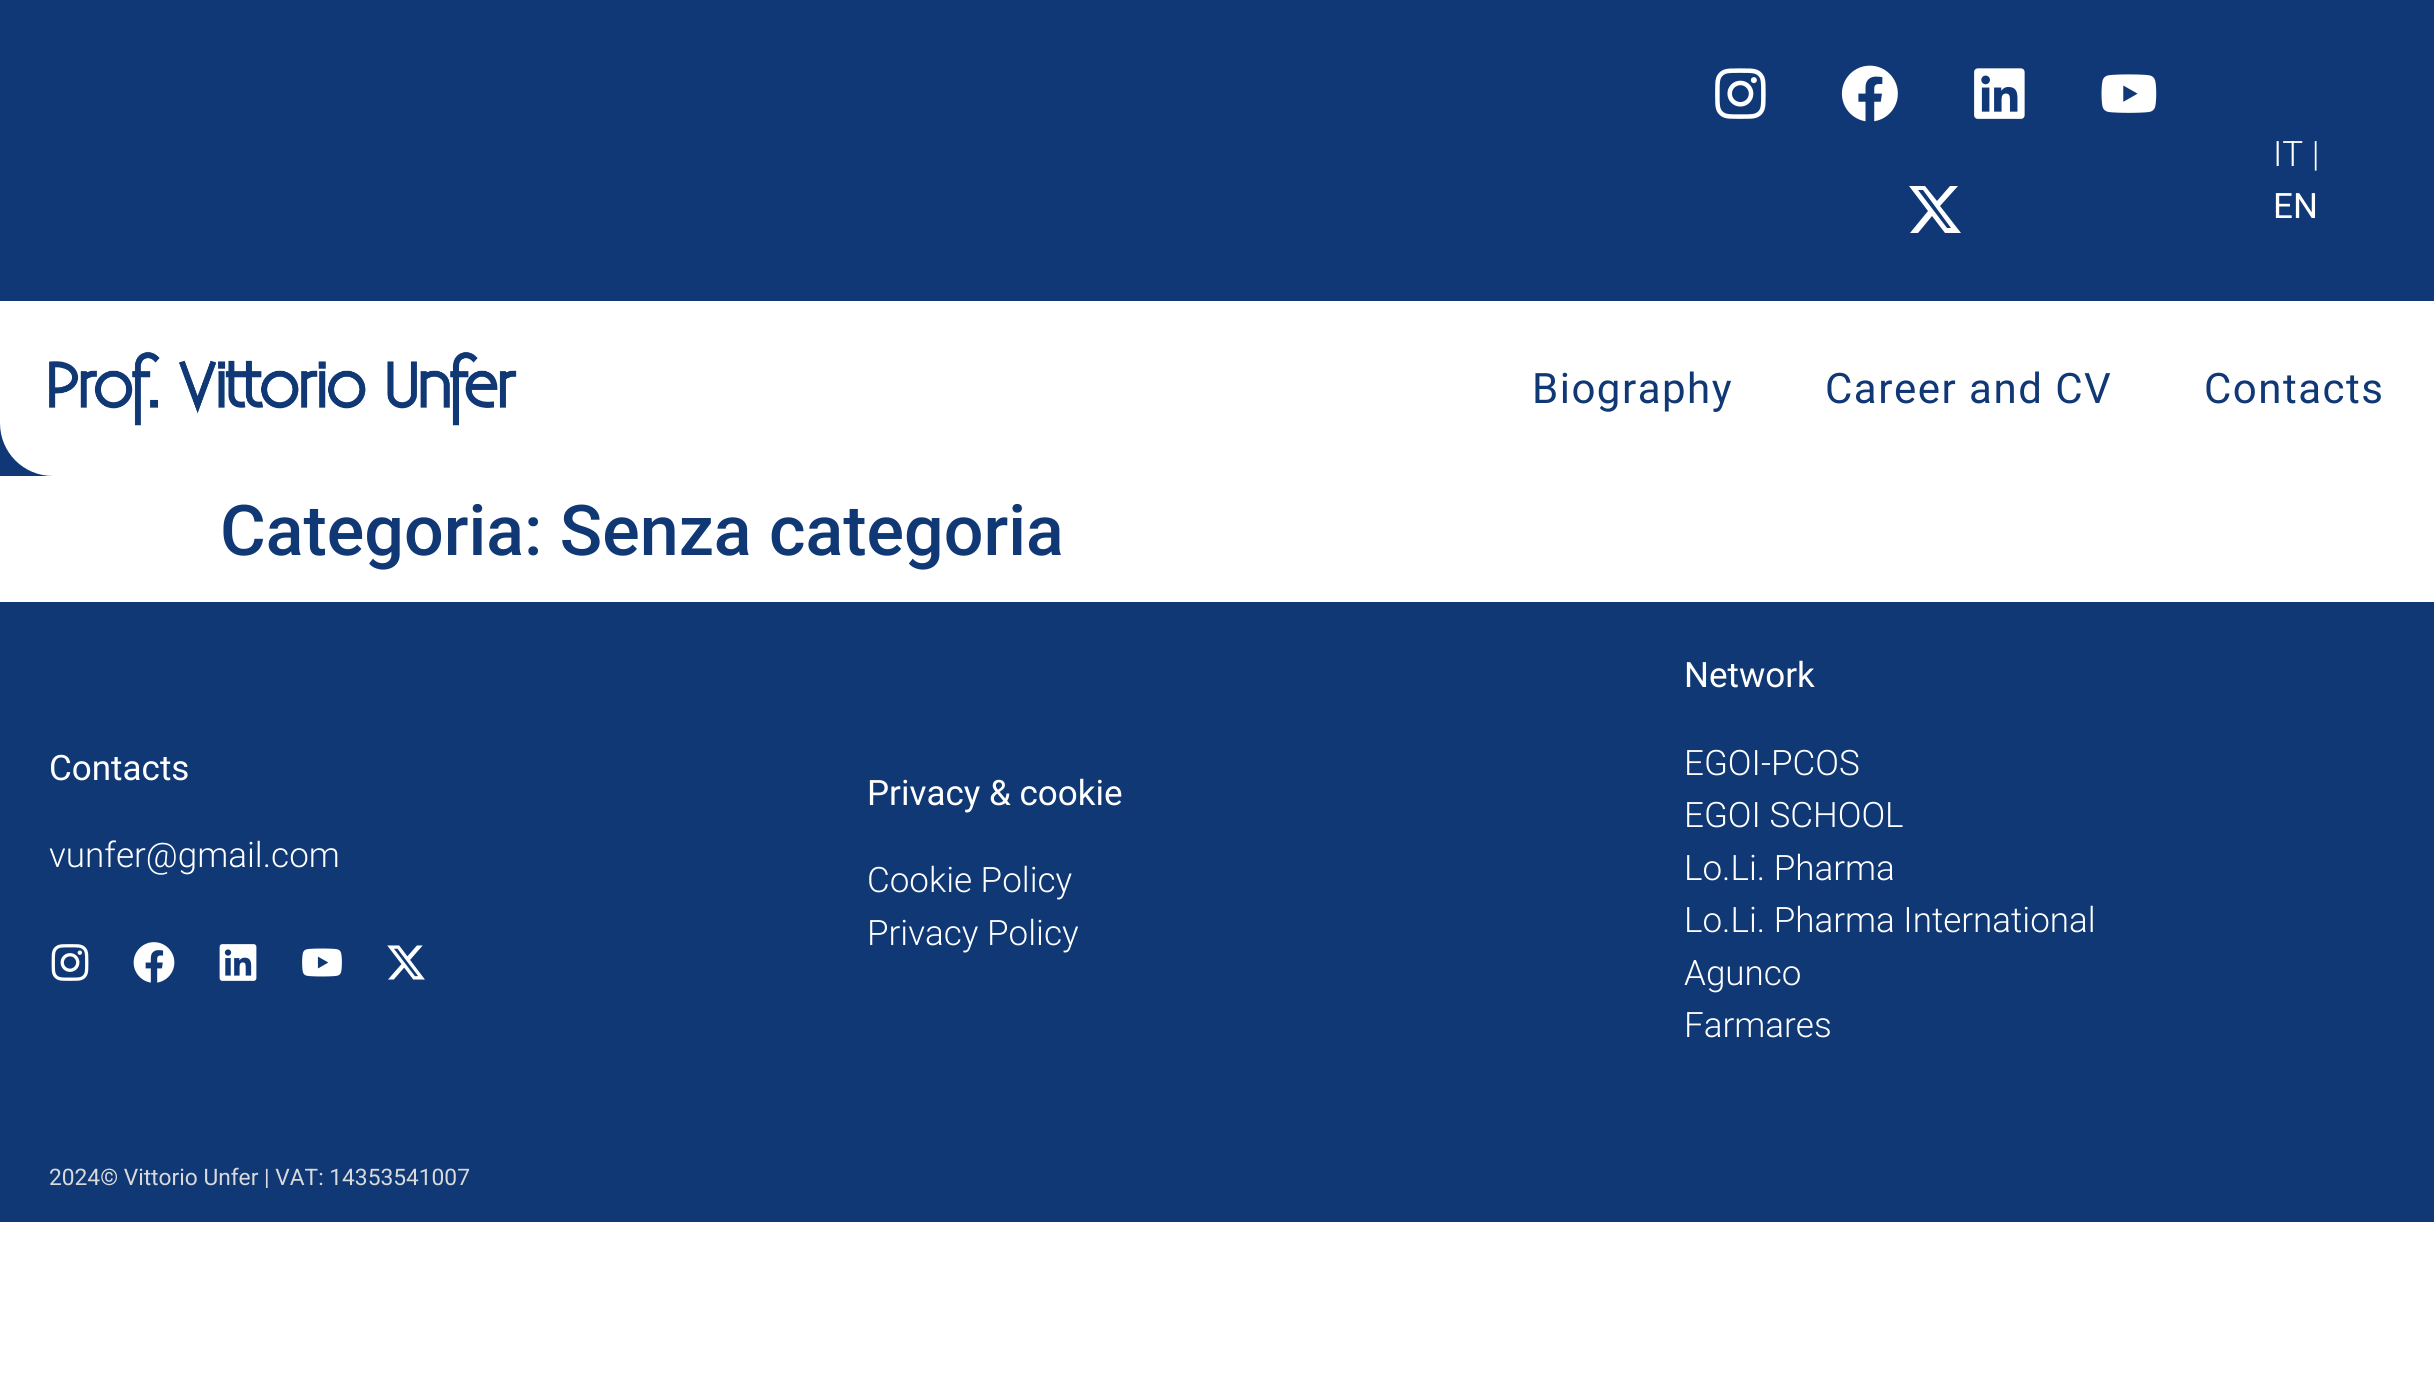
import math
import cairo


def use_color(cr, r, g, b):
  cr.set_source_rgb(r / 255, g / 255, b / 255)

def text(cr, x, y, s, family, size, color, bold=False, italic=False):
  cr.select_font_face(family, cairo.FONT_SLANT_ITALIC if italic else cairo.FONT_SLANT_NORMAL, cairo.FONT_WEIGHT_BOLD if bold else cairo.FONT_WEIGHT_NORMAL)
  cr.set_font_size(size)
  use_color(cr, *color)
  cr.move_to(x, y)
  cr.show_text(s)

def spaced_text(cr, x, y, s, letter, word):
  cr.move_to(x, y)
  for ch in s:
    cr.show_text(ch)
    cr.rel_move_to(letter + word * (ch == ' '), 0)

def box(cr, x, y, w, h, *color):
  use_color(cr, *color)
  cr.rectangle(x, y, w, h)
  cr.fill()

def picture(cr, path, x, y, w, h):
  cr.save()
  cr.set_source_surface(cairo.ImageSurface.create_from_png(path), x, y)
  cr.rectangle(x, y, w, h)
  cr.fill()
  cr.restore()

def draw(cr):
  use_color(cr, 255, 255, 255)
  cr.paint()
  box(cr, 0, 0, 2434, 476, 16, 56, 118)
  picture(cr, "img_01.png", 1715, 68, 51, 51)
  picture(cr, "img_02.png", 1841, 65, 57, 57)
  picture(cr, "img_03.png", 1974, 68, 51, 51)
  picture(cr, "img_04.png", 2101, 74, 56, 39)
  use_color(cr, 255, 255, 255)
  cr.new_path()
  cr.move_to(1950, 186)
  cr.line_to(1958, 186)
  cr.line_to(1940, 206)
  cr.line_to(1961, 233)
  cr.line_to(1945, 233)
  cr.line_to(1932, 216)
  cr.line_to(1918, 233)
  cr.line_to(1910, 233)
  cr.line_to(1928, 211)
  cr.line_to(1909, 186)
  cr.line_to(1925, 186)
  cr.line_to(1937, 201)
  cr.close_path()
  cr.move_to(1947, 228)
  cr.line_to(1951, 228)
  cr.line_to(1923, 190)
  cr.line_to(1918, 190)
  cr.close_path()
  cr.fill()
  cr.new_path()
  cr.move_to(0, 301)
  cr.line_to(2434, 301)
  cr.line_to(2434, 476)
  cr.line_to(53, 476)
  cr.curve_to(23.5, 476, 0, 452.5, 0, 423)
  cr.close_path()
  cr.fill()
  picture(cr, "img_05.png", 49, 351, 468, 75)
  box(cr, 0, 602, 2434, 620, 16, 56, 117)
  picture(cr, "img_06.png", 51, 944, 38, 37)
  picture(cr, "img_07.png", 133, 942, 42, 41)
  picture(cr, "img_08.png", 219, 944, 38, 37)
  picture(cr, "img_09.png", 302, 948, 40, 29)
  picture(cr, "img_10.png", 387, 945, 38, 35)
  text(cr, 2273, 166, "IT |", "Roboto Light", 35, (255, 255, 255))
  text(cr, 2273, 218, "EN", "Roboto", 35, (255, 255, 255))
  cr.set_font_size(42)
  use_color(cr, 16, 56, 117)
  spaced_text(cr, 1532, 403, "Biography", 1.5, 0)
  spaced_text(cr, 1825, 403, "Career and CV", 1.5, 0)
  spaced_text(cr, 2204, 403, "Contacts", 1.5, 0)
  text(cr, 220, 555, "Categoria: Senza categoria", "Roboto Medium", 70, (16, 56, 117))
  text(cr, 49, 780, "Contacts", "Roboto", 35, (255, 255, 255))
  text(cr, 49, 867, "vunfer@gmail.com", "Roboto Light", 35, (255, 255, 255))
  text(cr, 867, 805, "Privacy & cookie", "Roboto", 35, (255, 255, 255))
  text(cr, 867, 892, "Cookie Policy", "Roboto Light", 35, (255, 255, 255))
  text(cr, 867, 945, "Privacy Policy", "Roboto Light", 35, (255, 255, 255))
  text(cr, 1684, 687, "Network", "Roboto", 35, (255, 255, 255))
  text(cr, 1684, 775, "EGOI-PCOS", "Roboto Light", 35, (255, 255, 255))
  text(cr, 1684, 827, "EGOI SCHOOL", "Roboto Light", 35, (255, 255, 255))
  text(cr, 1684, 880, "Lo.Li. Pharma", "Roboto Light", 35, (255, 255, 255))
  text(cr, 1684, 932, "Lo.Li. Pharma International", "Roboto Light", 35, (255, 255, 255))
  text(cr, 1684, 985, "Agunco", "Roboto Light", 35, (255, 255, 255))
  text(cr, 1684, 1037, "Farmares", "Roboto Light", 35, (255, 255, 255))
  text(cr, 49, 1185, "2024© Vittorio Unfer | VAT: 14353541007", "Roboto", 22.75, (218, 218, 218))


surface = cairo.ImageSurface(cairo.FORMAT_RGB24, 2434, 1377)
cr = cairo.Context(surface)
options = cairo.FontOptions()
options.set_hint_metrics(cairo.HINT_METRICS_OFF)
options.set_hint_style(cairo.HINT_STYLE_NONE)
cr.set_font_options(options)
cr.set_miter_limit(4)
draw(cr)
surface.write_to_png("out.png")
